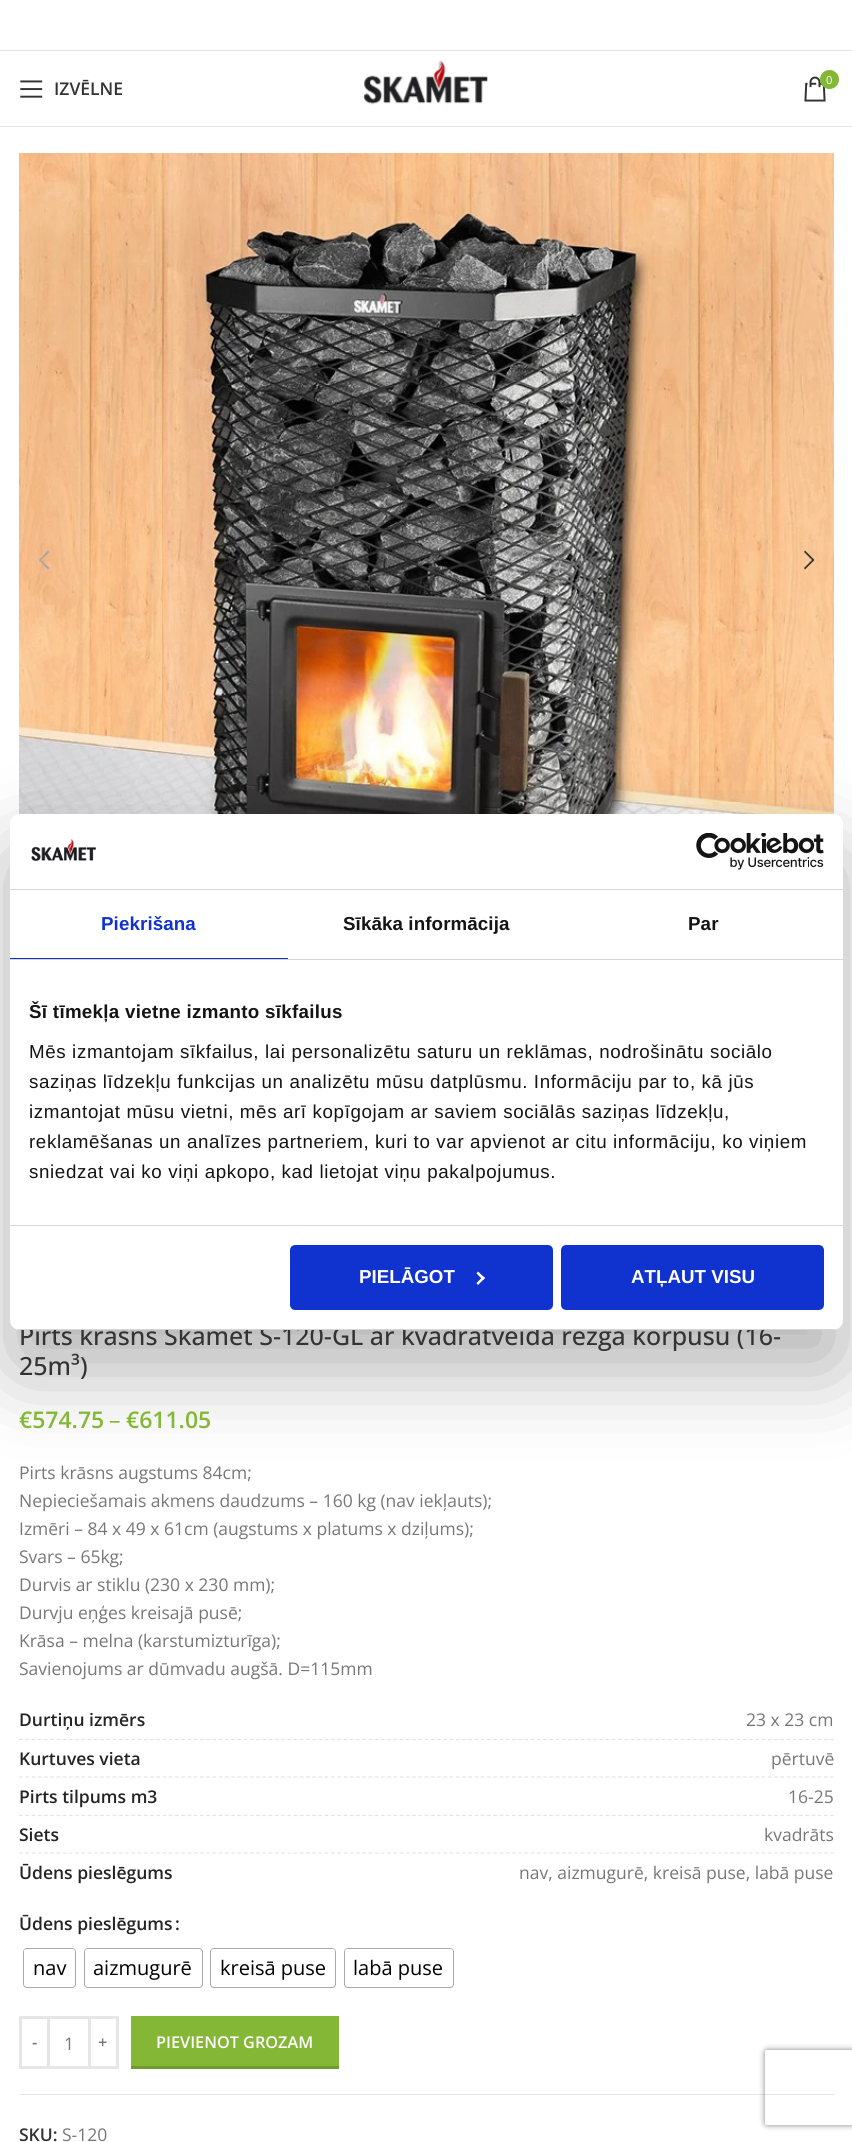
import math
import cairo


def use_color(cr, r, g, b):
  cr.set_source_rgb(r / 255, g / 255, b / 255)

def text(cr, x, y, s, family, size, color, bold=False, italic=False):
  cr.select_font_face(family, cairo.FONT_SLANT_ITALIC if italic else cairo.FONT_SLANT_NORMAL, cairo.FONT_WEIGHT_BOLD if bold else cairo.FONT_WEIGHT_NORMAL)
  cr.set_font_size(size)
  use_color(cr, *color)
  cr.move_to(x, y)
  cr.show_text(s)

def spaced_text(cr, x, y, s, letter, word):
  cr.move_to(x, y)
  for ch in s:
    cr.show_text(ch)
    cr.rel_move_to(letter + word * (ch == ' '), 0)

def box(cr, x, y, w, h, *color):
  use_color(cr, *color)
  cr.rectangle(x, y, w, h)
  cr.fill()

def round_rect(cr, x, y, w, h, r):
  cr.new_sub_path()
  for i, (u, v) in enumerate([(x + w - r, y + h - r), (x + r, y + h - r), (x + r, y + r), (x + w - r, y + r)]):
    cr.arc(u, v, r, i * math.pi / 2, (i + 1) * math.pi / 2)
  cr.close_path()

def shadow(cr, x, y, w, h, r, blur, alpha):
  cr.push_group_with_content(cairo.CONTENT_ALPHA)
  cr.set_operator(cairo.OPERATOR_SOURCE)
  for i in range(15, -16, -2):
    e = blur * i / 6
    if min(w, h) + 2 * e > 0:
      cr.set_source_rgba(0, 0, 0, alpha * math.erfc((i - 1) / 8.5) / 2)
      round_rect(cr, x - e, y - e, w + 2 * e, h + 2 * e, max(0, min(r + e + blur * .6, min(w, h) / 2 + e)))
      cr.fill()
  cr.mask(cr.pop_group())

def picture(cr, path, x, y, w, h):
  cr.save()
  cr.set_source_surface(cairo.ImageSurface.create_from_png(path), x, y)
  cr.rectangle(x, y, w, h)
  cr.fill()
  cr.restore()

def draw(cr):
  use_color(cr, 255, 255, 255)
  cr.paint()
  box(cr, 0, 50, 852, 1, 227, 227, 227)
  box(cr, 0, 126, 852, 1, 230, 230, 230)
  picture(cr, "img_01.png", 20, 80, 23, 18)
  picture(cr, "img_02.png", 363, 60, 125, 50)
  picture(cr, "img_03.png", 804, 76, 22, 26)
  use_color(cr, 131, 183, 53)
  cr.arc(829.5, 79.5, 9.5, 0, 2 * math.pi)
  cr.fill()
  picture(cr, "img_04.png", 19, 153, 815, 662)
  use_color(cr, 165, 165, 165)
  cr.new_path()
  cr.move_to(49.5, 552)
  cr.line_to(48, 550.5)
  cr.line_to(39, 560)
  cr.line_to(48, 569.5)
  cr.line_to(49.5, 568)
  cr.line_to(41, 560)
  cr.close_path()
  cr.fill()
  use_color(cr, 51, 51, 51)
  cr.new_path()
  cr.move_to(804, 552)
  cr.line_to(812, 560)
  cr.line_to(804, 568)
  cr.line_to(805, 569.5)
  cr.line_to(814.5, 560)
  cr.line_to(805, 550.5)
  cr.close_path()
  cr.fill()
  cr.new_path()
  cr.move_to(19, 1739.5)
  cr.line_to(834, 1739.5)
  use_color(cr, 228, 228, 228)
  cr.set_line_width(1.2)
  cr.set_dash([3.75, 2.49])
  cr.stroke()
  cr.new_path()
  cr.move_to(19, 1777)
  cr.line_to(834, 1777)
  cr.stroke()
  cr.new_path()
  cr.move_to(19, 1815.5)
  cr.line_to(834, 1815.5)
  cr.stroke()
  cr.new_path()
  cr.move_to(19, 1853)
  cr.line_to(834, 1853)
  cr.stroke()
  round_rect(cr, 23.5, 1948.5, 52, 39, 3.5)
  use_color(cr, 168, 168, 168)
  cr.set_line_width(1)
  cr.set_dash([])
  cr.stroke()
  use_color(cr, 255, 255, 255)
  round_rect(cr, 24, 1949, 51, 37, 2.5)
  cr.fill()
  round_rect(cr, 84.5, 1948.5, 118, 39, 3.5)
  use_color(cr, 168, 168, 168)
  cr.stroke()
  use_color(cr, 255, 255, 255)
  round_rect(cr, 85, 1949, 116, 37, 2.5)
  cr.fill()
  round_rect(cr, 210.5, 1948.5, 125, 39, 3.5)
  use_color(cr, 168, 168, 168)
  cr.stroke()
  use_color(cr, 255, 255, 255)
  round_rect(cr, 211, 1949, 124, 37, 2.5)
  cr.fill()
  round_rect(cr, 344.5, 1948.5, 109, 39, 3.5)
  use_color(cr, 168, 168, 168)
  cr.stroke()
  use_color(cr, 255, 255, 255)
  round_rect(cr, 345, 1949, 108, 37, 2.5)
  cr.fill()
  cr.rectangle(20.5, 2017.5, 28, 50)
  use_color(cr, 230, 230, 230)
  cr.set_line_width(3)
  cr.stroke()
  box(cr, 50, 2016, 38, 3, 230, 230, 230)
  box(cr, 50, 2066, 38, 3, 230, 230, 230)
  cr.rectangle(89.5, 2017.5, 28, 50)
  cr.stroke()
  box(cr, 131, 2016, 208, 50, 131, 183, 53)
  box(cr, 131, 2066, 208, 3, 111, 156, 45)
  box(cr, 19, 2094, 815, 1, 228, 228, 228)
  use_color(cr, 0, 0, 0)
  shadow(cr, 10, 854, 833, 516, 10, 42.5, 0.3)
  cr.save()
  cr.set_fill_rule(cairo.FILL_RULE_EVEN_ODD)
  cr.new_path()
  cr.move_to(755, 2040)
  cr.line_to(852, 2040)
  cr.line_to(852, 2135)
  cr.line_to(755, 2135)
  cr.close_path()
  cr.move_to(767.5, 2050)
  cr.line_to(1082.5, 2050)
  cr.curve_to(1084, 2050, 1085, 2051, 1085, 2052.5)
  cr.line_to(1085, 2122.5)
  cr.curve_to(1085, 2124, 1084, 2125, 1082.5, 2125)
  cr.line_to(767.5, 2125)
  cr.curve_to(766, 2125, 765, 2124, 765, 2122.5)
  cr.line_to(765, 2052.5)
  cr.curve_to(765, 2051, 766, 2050, 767.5, 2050)
  cr.close_path()
  cr.clip()
  use_color(cr, 128, 128, 128)
  shadow(cr, 765, 2050, 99, 75, 2.5, 3, 1)
  cr.restore()
  use_color(cr, 255, 255, 255)
  round_rect(cr, 838, 2078, 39, 50, 25)
  cr.fill()
  text(cr, 54, 95, "IZVĒLNE", "Open Sans SemiBold", 17.5, (51, 51, 51))
  text(cr, 826, 84, "0", "Open Sans", 11, (255, 255, 255))
  text(cr, 19, 1345, "Pirts krāsns Skamet S-120-GL ar kvadrātveida režģa korpusu (16-", "Open Sans Medium", 25, (51, 51, 51))
  text(cr, 19, 1375, "25m³)", "Open Sans Medium", 25, (51, 51, 51))
  text(cr, 19, 1428, "€574.75", "Open Sans SemiBold", 23, (131, 183, 53))
  text(cr, 109, 1428, "–", "Open Sans", 23, (131, 183, 53))
  text(cr, 126, 1428, "€611.05", "Open Sans SemiBold", 23, (131, 183, 53))
  text(cr, 19, 1479, "Pirts krāsns augstums 84cm;", "Open Sans", 17.5, (119, 119, 119))
  text(cr, 19, 1507, "Nepieciešamais akmens daudzums – 160 kg (nav iekļauts);", "Open Sans", 17.5, (119, 119, 119))
  text(cr, 19, 1535, "Izmēri – 84 x 49 x 61cm (augstums x platums x dziļums);", "Open Sans", 17.5, (119, 119, 119))
  text(cr, 19, 1563, "Svars – 65kg;", "Open Sans", 17.5, (119, 119, 119))
  text(cr, 19, 1591, "Durvis ar stiklu (230 x 230 mm);", "Open Sans", 17.5, (119, 119, 119))
  text(cr, 19, 1619, "Durvju eņģes kreisajā pusē;", "Open Sans", 17.5, (119, 119, 119))
  text(cr, 19, 1647, "Krāsa – melna (karstumizturīga);", "Open Sans", 17.5, (119, 119, 119))
  text(cr, 19, 1675, "Savienojums ar dūmvadu augšā. D=115mm", "Open Sans", 17.5, (119, 119, 119))
  text(cr, 19, 1726, "Durtiņu izmērs", "Open Sans SemiBold", 17.5, (36, 36, 36))
  text(cr, 746, 1726, "23 x 23 cm", "Open Sans", 17.5, (119, 119, 119))
  text(cr, 19, 1765, "Kurtuves vieta", "Open Sans SemiBold", 17.5, (36, 36, 36))
  text(cr, 771, 1765, "pērtuvē", "Open Sans", 17.5, (119, 119, 119))
  text(cr, 19, 1803, "Pirts tilpums m3", "Open Sans SemiBold", 17.5, (36, 36, 36))
  text(cr, 788, 1803, "16-25", "Open Sans", 17.5, (119, 119, 119))
  text(cr, 19, 1841, "Siets", "Open Sans SemiBold", 17.5, (36, 36, 36))
  text(cr, 764, 1841, "kvadrāts", "Open Sans", 17.5, (119, 119, 119))
  text(cr, 19, 1879, "Ūdens pieslēgums", "Open Sans SemiBold", 17.5, (36, 36, 36))
  text(cr, 519, 1879, "nav, aizmugurē, kreisā puse, labā puse", "Open Sans", 17.5, (119, 119, 119))
  text(cr, 19, 1930, "Ūdens pieslēgums", "Open Sans SemiBold", 17.5, (36, 36, 36))
  text(cr, 175, 1930, ":", "Open Sans SemiBold", 17.5, (36, 36, 36))
  text(cr, 33, 1975, "nav", "Open Sans", 20, (0, 0, 0))
  text(cr, 93, 1975, "aizmugurē", "Open Sans", 20, (0, 0, 0))
  text(cr, 220, 1975, "kreisā puse", "Open Sans", 20, (0, 0, 0))
  text(cr, 353, 1975, "labā puse", "Open Sans", 20, (0, 0, 0))
  text(cr, 32, 2048, "-", "Open Sans SemiBold", 16.25, (119, 119, 119))
  text(cr, 64, 2050, "1", "Open Sans", 17.5, (119, 119, 119))
  text(cr, 98, 2048, "+", "Open Sans SemiBold", 16.25, (119, 119, 119))
  text(cr, 156, 2048, "PIEVIENOT GROZAM", "Open Sans SemiBold", 16.25, (255, 255, 255))
  text(cr, 19, 2141, "SKU:", "Open Sans SemiBold", 17.5, (51, 51, 51))
  text(cr, 62, 2141, "S-120", "Open Sans", 17.5, (119, 119, 119))
  use_color(cr, 255, 255, 255)
  round_rect(cr, 10, 814, 833, 516, 10)
  cr.fill()
  box(cr, 10, 889, 833, 1, 214, 214, 214)
  picture(cr, "img_05.png", 31, 839, 66, 25)
  picture(cr, "img_06.png", 696, 833, 128, 37)
  box(cr, 10, 959, 833, 1, 214, 214, 214)
  box(cr, 10, 958, 278, 1, 16, 50, 207)
  cr.select_font_face("Liberation Sans", cairo.FONT_SLANT_NORMAL, cairo.FONT_WEIGHT_BOLD)
  cr.set_font_size(18.75)
  spaced_text(cr, 101, 930, "Piekrišana", 0.1, 0)
  use_color(cr, 20, 20, 20)
  spaced_text(cr, 343, 930, "Sīkāka informācija", 0.1, 0)
  spaced_text(cr, 688, 930, "Par", 0.1, 0)
  box(cr, 10, 1225, 833, 1, 214, 214, 214)
  use_color(cr, 20, 20, 20)
  spaced_text(cr, 29, 1018, "Šī tīmekļa vietne izmanto sīkfailus", 0.3, 0)
  cr.select_font_face("Liberation Sans")
  spaced_text(cr, 29, 1058, "Mēs izmantojam sīkfailus, lai personalizētu saturu un reklāmas, nodrošinātu sociālo", 0.62, 0)
  spaced_text(cr, 29, 1088, "saziņas līdzekļu funkcijas un analizētu mūsu datplūsmu. Informāciju par to, kā jūs", 0.62, 0)
  spaced_text(cr, 29, 1118, "izmantojat mūsu vietni, mēs arī kopīgojam ar saviem sociālās saziņas līdzekļu,", 0.62, 0)
  spaced_text(cr, 29, 1148, "reklamēšanas un analīzes partneriem, kuri to var apvienot ar citu informāciju, ko viņiem", 0.62, 0)
  spaced_text(cr, 29, 1178, "sniedzat vai ko viņi apkopo, kad lietojat viņu pakalpojumus.", 0.62, 0)
  cr.save()
  round_rect(cr, 10, 814, 833, 516, 10)
  cr.clip()
  box(cr, 10, 1329, 833, 1, 214, 214, 214)
  cr.restore()
  use_color(cr, 16, 50, 207)
  round_rect(cr, 291.5, 1246.5, 260, 62, 3.5)
  cr.fill_preserve()
  cr.stroke()
  text(cr, 359, 1283, "PIELĀGOT", "Liberation Sans", 18.75, (255, 255, 255), bold=True)
  cr.new_path()
  cr.move_to(478, 1271.5)
  cr.line_to(485, 1278)
  cr.line_to(483, 1280)
  cr.line_to(476.5, 1273.5)
  cr.close_path()
  cr.fill()
  cr.new_path()
  cr.move_to(483, 1276.5)
  cr.line_to(485, 1278)
  cr.line_to(478, 1285)
  cr.line_to(476.5, 1283)
  cr.close_path()
  cr.fill()
  use_color(cr, 16, 50, 207)
  round_rect(cr, 562.5, 1246.5, 260, 62, 3.5)
  cr.fill_preserve()
  cr.stroke()
  text(cr, 631, 1283, "ATĻAUT VISU", "Liberation Sans", 18.75, (255, 255, 255), bold=True)


surface = cairo.ImageSurface(cairo.FORMAT_RGB24, 852, 2142)
cr = cairo.Context(surface)
options = cairo.FontOptions()
options.set_hint_metrics(cairo.HINT_METRICS_OFF)
options.set_hint_style(cairo.HINT_STYLE_NONE)
cr.set_font_options(options)
cr.set_miter_limit(4)
draw(cr)
surface.write_to_png("out.png")
